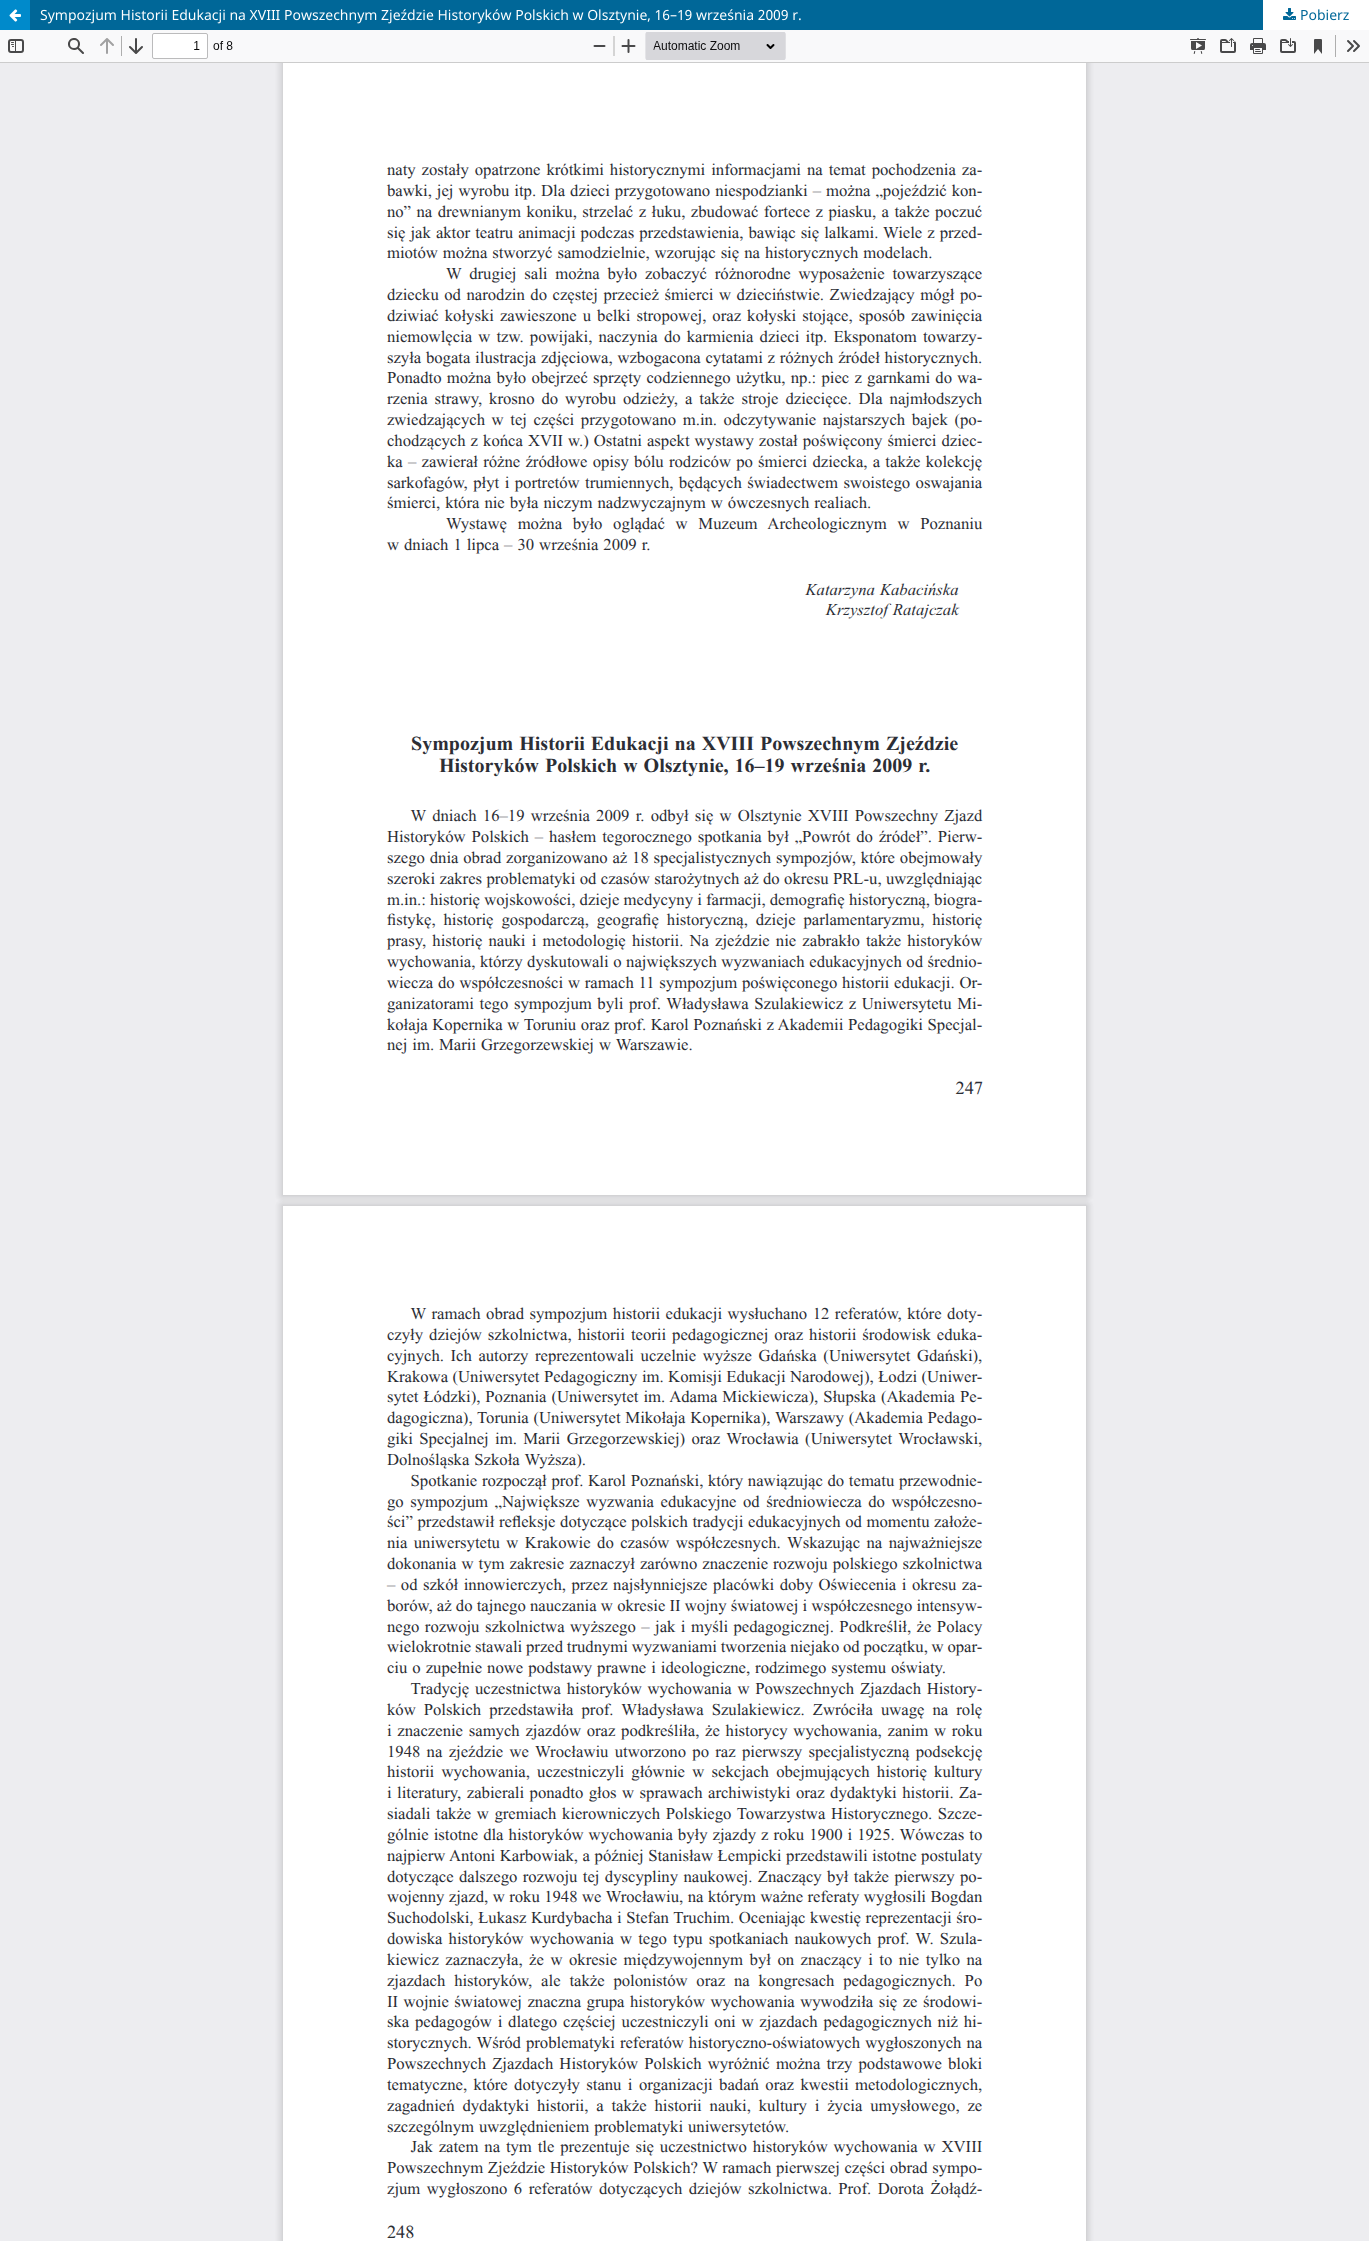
import math
import cairo


def use_color(cr, r, g, b):
  cr.set_source_rgb(r / 255, g / 255, b / 255)

def text(cr, x, y, s, family, size, color, bold=False, italic=False):
  cr.select_font_face(family, cairo.FONT_SLANT_ITALIC if italic else cairo.FONT_SLANT_NORMAL, cairo.FONT_WEIGHT_BOLD if bold else cairo.FONT_WEIGHT_NORMAL)
  cr.set_font_size(size)
  use_color(cr, *color)
  cr.move_to(x, y)
  cr.show_text(s)

def box(cr, x, y, w, h, *color):
  use_color(cr, *color)
  cr.rectangle(x, y, w, h)
  cr.fill()

def picture(cr, path, x, y, w, h):
  cr.save()
  cr.set_source_surface(cairo.ImageSurface.create_from_png(path), x, y)
  cr.rectangle(x, y, w, h)
  cr.fill()
  cr.restore()

def draw(cr):
  use_color(cr, 255, 255, 255)
  cr.paint()
  box(cr, 30, 0, 1233, 30, 0, 103, 152)
  box(cr, 0, 0, 30, 30, 0, 138, 203)
  picture(cr, "img_01.png", 9, 9, 12, 13)
  picture(cr, "img_02.png", 1283, 8, 13, 12)
  picture(cr, "img_03.png", 0, 30, 1369, 2211)
  text(cr, 40, 20, "Sympozjum Historii Edukacji na XVIII Powszechnym Zjeździe Historyków Polskich w Olsztynie, 16–19 września 2009 r.", "Noto Sans", 14, (255, 255, 255))
  text(cr, 1300, 20, "Pobierz", "Noto Sans", 14, (0, 103, 152))


surface = cairo.ImageSurface(cairo.FORMAT_RGB24, 1369, 2241)
cr = cairo.Context(surface)
options = cairo.FontOptions()
options.set_hint_metrics(cairo.HINT_METRICS_OFF)
options.set_hint_style(cairo.HINT_STYLE_NONE)
cr.set_font_options(options)
cr.set_miter_limit(4)
draw(cr)
surface.write_to_png("out.png")
